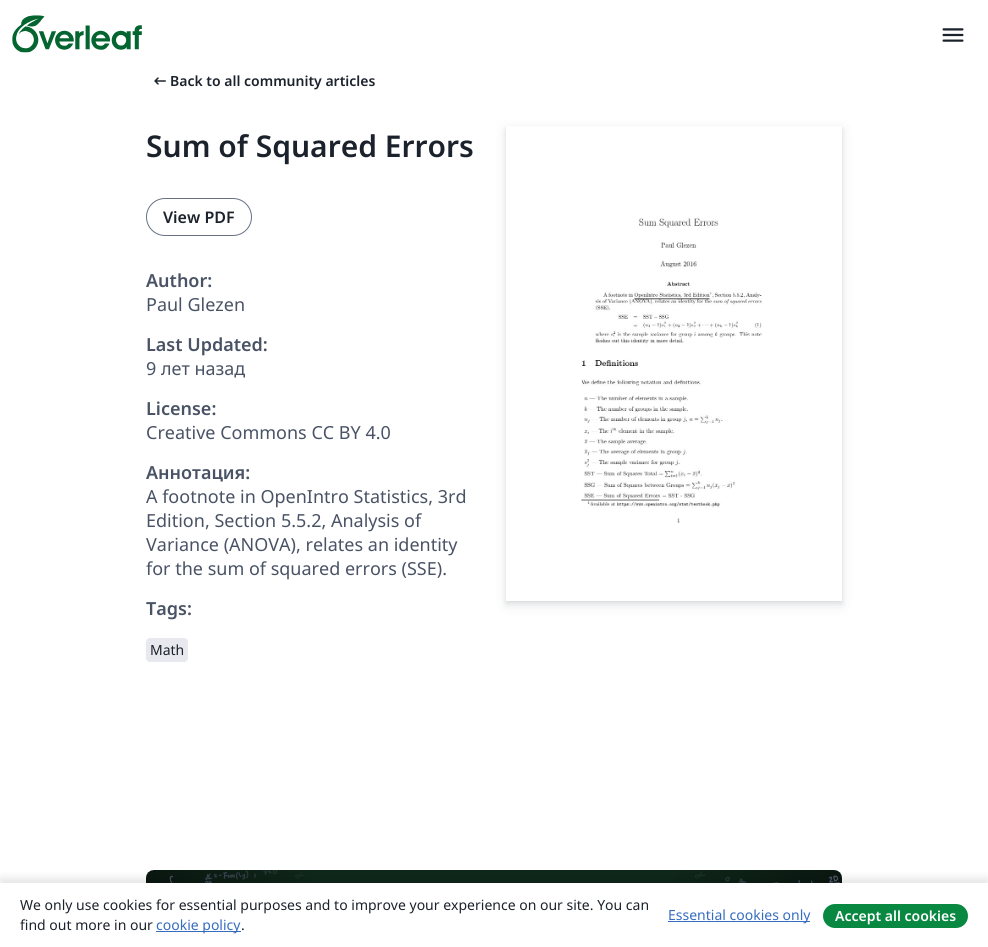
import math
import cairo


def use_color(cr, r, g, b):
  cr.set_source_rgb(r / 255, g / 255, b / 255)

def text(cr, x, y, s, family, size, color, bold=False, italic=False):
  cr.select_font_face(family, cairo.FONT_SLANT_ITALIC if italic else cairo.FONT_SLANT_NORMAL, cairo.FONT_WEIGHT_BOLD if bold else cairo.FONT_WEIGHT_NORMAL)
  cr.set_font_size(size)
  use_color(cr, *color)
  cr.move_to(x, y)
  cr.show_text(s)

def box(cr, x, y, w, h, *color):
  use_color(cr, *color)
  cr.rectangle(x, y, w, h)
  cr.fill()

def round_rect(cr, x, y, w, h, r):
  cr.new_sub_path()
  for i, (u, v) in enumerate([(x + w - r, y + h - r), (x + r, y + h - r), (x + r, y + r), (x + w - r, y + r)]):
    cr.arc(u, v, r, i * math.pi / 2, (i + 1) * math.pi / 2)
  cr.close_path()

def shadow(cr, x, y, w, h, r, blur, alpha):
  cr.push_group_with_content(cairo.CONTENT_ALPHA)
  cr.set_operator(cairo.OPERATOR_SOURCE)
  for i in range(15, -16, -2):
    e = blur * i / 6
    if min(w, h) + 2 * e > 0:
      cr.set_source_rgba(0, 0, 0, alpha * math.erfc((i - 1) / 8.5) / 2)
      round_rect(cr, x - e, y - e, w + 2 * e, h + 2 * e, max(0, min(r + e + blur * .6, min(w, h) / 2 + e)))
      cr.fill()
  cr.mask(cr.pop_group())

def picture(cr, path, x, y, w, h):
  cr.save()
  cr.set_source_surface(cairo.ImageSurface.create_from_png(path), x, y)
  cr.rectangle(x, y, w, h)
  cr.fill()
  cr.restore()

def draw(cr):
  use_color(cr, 255, 255, 255)
  cr.paint()
  picture(cr, "img_01.png", 12, 15, 130, 38)
  picture(cr, "img_02.png", 942, 28, 22, 14)
  picture(cr, "img_03.png", 154, 77, 12, 8)
  round_rect(cr, 146.5, 198.5, 105, 37, 18.5)
  use_color(cr, 103, 114, 131)
  cr.set_line_width(1)
  cr.stroke()
  use_color(cr, 231, 233, 238)
  round_rect(cr, 146, 638, 42, 24, 4)
  cr.fill()
  cr.save()
  cr.set_fill_rule(cairo.FILL_RULE_EVEN_ODD)
  cr.new_path()
  cr.move_to(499, 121)
  cr.line_to(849, 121)
  cr.line_to(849, 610)
  cr.line_to(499, 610)
  cr.close_path()
  cr.move_to(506, 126)
  cr.line_to(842, 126)
  cr.line_to(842, 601)
  cr.line_to(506, 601)
  cr.close_path()
  cr.clip()
  use_color(cr, 30, 37, 48)
  shadow(cr, 506, 128, 336, 475, 0, 2, 0.08)
  cr.restore()
  cr.save()
  cr.set_fill_rule(cairo.FILL_RULE_EVEN_ODD)
  cr.new_path()
  cr.move_to(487, 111)
  cr.line_to(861, 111)
  cr.line_to(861, 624)
  cr.line_to(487, 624)
  cr.close_path()
  cr.move_to(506, 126)
  cr.line_to(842, 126)
  cr.line_to(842, 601)
  cr.line_to(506, 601)
  cr.close_path()
  cr.clip()
  use_color(cr, 30, 37, 48)
  shadow(cr, 506, 130, 336, 475, 0, 6, 0.12)
  cr.restore()
  picture(cr, "img_04.png", 581, 218, 181, 305)
  picture(cr, "img_05.png", 146, 870, 696, 13)
  use_color(cr, 0, 0, 0)
  shadow(cr, 0, 878, 988, 64, 0, 4, 0.1)
  box(cr, 0, 883, 988, 64, 255, 255, 255)
  box(cr, 156, 931, 85, 1, 54, 108, 191)
  box(cr, 668, 921, 142, 1, 54, 108, 191)
  use_color(cr, 9, 136, 66)
  round_rect(cr, 823, 904, 145, 24, 12)
  cr.fill()
  text(cr, 170, 86, "Back to all community articles", "Noto Sans SemiBold", 14, (27, 34, 44))
  text(cr, 146, 157, "Sum of Squared Errors", "Noto Sans SemiBold", 30, (27, 34, 44))
  text(cr, 163, 223, "View PDF", "Noto Sans SemiBold", 16, (27, 34, 44))
  text(cr, 146, 287, "Author:", "Noto Sans SemiBold", 18, (73, 83, 101))
  text(cr, 146, 311, "Paul Glezen", "Noto Sans", 18, (73, 83, 101))
  text(cr, 146, 351, "Last Updated:", "Noto Sans SemiBold", 18, (73, 83, 101))
  text(cr, 146, 375, "9 лет назад", "Noto Sans", 18, (73, 83, 101))
  text(cr, 146, 415, "License:", "Noto Sans SemiBold", 18, (73, 83, 101))
  text(cr, 146, 439, "Creative Commons CC BY 4.0", "Noto Sans", 18, (73, 83, 101))
  text(cr, 146, 479, "Аннотация:", "Noto Sans SemiBold", 18, (73, 83, 101))
  text(cr, 146, 503, "A footnote in OpenIntro Statistics, 3rd", "Noto Sans", 18, (73, 83, 101))
  text(cr, 146, 527, "Edition, Section 5.5.2, Analysis of", "Noto Sans", 18, (73, 83, 101))
  text(cr, 146, 551, "Variance (ANOVA), relates an identity", "Noto Sans", 18, (73, 83, 101))
  text(cr, 146, 575, "for the sum of squared errors (SSE).", "Noto Sans", 18, (73, 83, 101))
  text(cr, 146, 615, "Tags:", "Noto Sans SemiBold", 18, (73, 83, 101))
  text(cr, 150, 655, "Math", "Noto Sans", 14, (27, 34, 44))
  text(cr, 20, 910, "We only use cookies for essential purposes and to improve your experience on our site. You can", "Noto Sans", 14, (27, 34, 44))
  text(cr, 20, 930, "find out more in our", "Noto Sans", 14, (27, 34, 44))
  text(cr, 156, 930, "cookie policy", "Noto Sans", 14, (54, 108, 191))
  text(cr, 241, 930, ".", "Noto Sans", 14, (27, 34, 44))
  text(cr, 668, 920, "Essential cookies only", "Noto Sans", 14, (54, 108, 191))
  text(cr, 835, 921, "Accept all cookies", "Noto Sans SemiBold", 14, (255, 255, 255))


surface = cairo.ImageSurface(cairo.FORMAT_RGB24, 988, 947)
cr = cairo.Context(surface)
options = cairo.FontOptions()
options.set_hint_metrics(cairo.HINT_METRICS_OFF)
options.set_hint_style(cairo.HINT_STYLE_NONE)
cr.set_font_options(options)
cr.set_miter_limit(4)
draw(cr)
surface.write_to_png("out.png")
